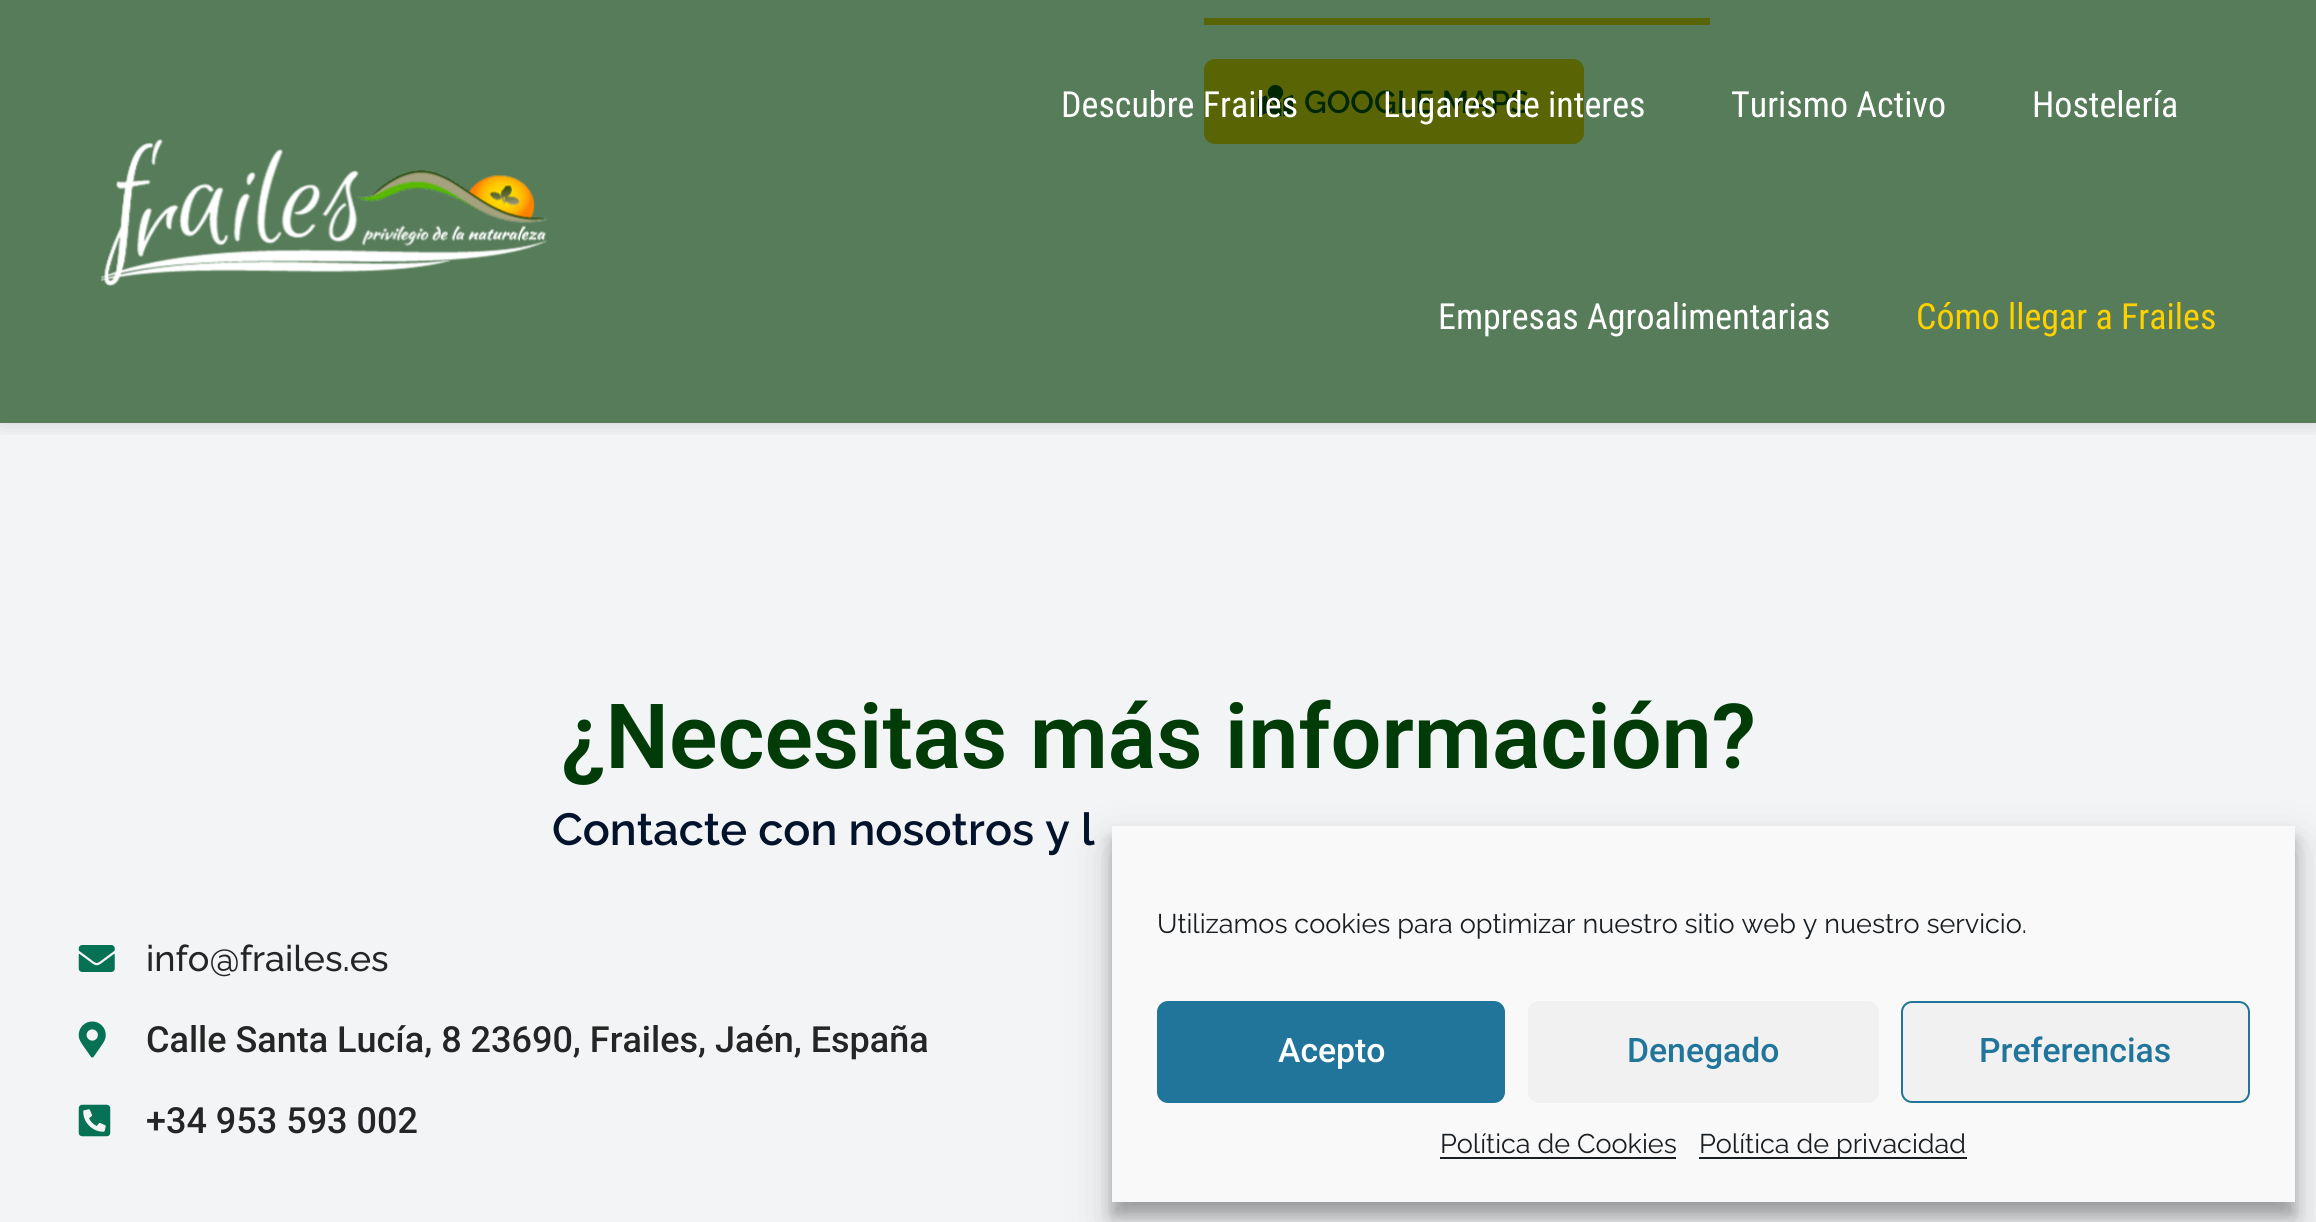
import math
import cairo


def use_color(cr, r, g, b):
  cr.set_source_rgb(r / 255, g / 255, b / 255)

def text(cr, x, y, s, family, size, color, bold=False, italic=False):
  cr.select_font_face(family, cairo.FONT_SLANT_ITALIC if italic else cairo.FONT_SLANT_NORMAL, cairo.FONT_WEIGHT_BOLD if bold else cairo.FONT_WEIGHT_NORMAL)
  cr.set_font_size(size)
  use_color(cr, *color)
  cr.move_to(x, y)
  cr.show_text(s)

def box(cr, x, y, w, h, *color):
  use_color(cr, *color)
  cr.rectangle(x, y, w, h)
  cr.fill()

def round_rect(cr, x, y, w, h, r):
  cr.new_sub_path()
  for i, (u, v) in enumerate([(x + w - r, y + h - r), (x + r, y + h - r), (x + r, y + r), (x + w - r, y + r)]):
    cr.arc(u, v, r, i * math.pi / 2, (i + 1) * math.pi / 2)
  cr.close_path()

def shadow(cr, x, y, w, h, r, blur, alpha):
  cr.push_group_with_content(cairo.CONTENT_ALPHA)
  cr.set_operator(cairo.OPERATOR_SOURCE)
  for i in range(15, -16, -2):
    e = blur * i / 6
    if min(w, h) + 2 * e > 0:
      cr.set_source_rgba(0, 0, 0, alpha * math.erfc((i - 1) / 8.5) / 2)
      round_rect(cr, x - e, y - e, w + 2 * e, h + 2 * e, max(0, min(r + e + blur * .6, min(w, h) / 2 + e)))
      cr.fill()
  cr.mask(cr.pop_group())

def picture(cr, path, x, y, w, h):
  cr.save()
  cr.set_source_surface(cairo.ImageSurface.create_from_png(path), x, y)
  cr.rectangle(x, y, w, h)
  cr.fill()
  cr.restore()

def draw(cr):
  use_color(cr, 242, 244, 246)
  cr.paint()
  box(cr, 0, 0, 2316, 423, 86, 124, 89)
  box(cr, 1204, 18, 506, 7, 89, 101, 4)
  round_rect(cr, 1204, 59, 380, 85, 11)
  cr.fill()
  picture(cr, "img_01.png", 1257, 84, 37, 33)
  picture(cr, "img_02.png", 78, 945, 37, 27)
  picture(cr, "img_03.png", 78, 1021, 28, 37)
  picture(cr, "img_04.png", 78, 1104, 33, 33)
  cr.save()
  cr.rectangle(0, 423, 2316, 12)
  cr.clip()
  use_color(cr, 0, 0, 0)
  shadow(cr, 0, 0, 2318, 423, 0, 11, 0.15)
  cr.restore()
  picture(cr, "img_05.png", 101, 139, 446, 147)
  use_color(cr, 0, 0, 0)
  shadow(cr, 1112, 839, 1183, 376, 0, 7, 0.23)
  shadow(cr, 1112, 848, 1183, 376, 0, 22.5, 0.19)
  box(cr, 1112, 826, 1183, 376, 249, 249, 249)
  use_color(cr, 33, 117, 155)
  round_rect(cr, 1158, 1002, 346, 100, 10)
  cr.fill_preserve()
  cr.stroke()
  use_color(cr, 241, 241, 241)
  round_rect(cr, 1528, 1001, 351, 102, 11)
  cr.fill()
  round_rect(cr, 1902, 1002, 347, 100, 10)
  cr.fill_preserve()
  use_color(cr, 33, 117, 155)
  cr.stroke()
  box(cr, 1440, 1157, 236, 2, 25, 30, 35)
  box(cr, 1699, 1157, 268, 2, 25, 30, 35)
  text(cr, 1304, 113, "GOOGLE MAPS", "Raleway SemiBold", 31.5, (1, 38, 3))
  text(cr, 561, 768, "¿Necesitas más información?", "Roboto SemiBold", 90, (1, 60, 8))
  text(cr, 552, 845, "Contacte con nosotros y l", "Raleway SemiBold", 45, (3, 19, 43))
  text(cr, 146, 971, "info@frailes.es", "Raleway Medium", 36, (37, 37, 37))
  text(cr, 146, 1052, "Calle Santa Lucía, 8 23690, Frailes, Jaén, España", "Roboto Medium", 36, (37, 37, 37))
  text(cr, 146, 1133, "+34 953 593 002", "Roboto Medium", 36, (37, 37, 37))
  text(cr, 1061, 117, "Descubre Frailes", "Roboto Condensed", 36, (255, 255, 255))
  text(cr, 1383, 117, "Lugares de interes", "Roboto Condensed", 36, (255, 255, 255))
  text(cr, 1731, 117, "Turismo Activo", "Roboto Condensed", 36, (255, 255, 255))
  text(cr, 2032, 117, "Hostelería", "Roboto Condensed", 36, (255, 255, 255))
  text(cr, 1438, 329, "Empresas Agroalimentarias", "Roboto Condensed", 36, (255, 255, 255))
  text(cr, 1916, 329, "Cómo llegar a Frailes", "Roboto Condensed", 36, (255, 209, 0))
  text(cr, 1157, 933, "Utilizamos cookies para optimizar nuestro sitio web y nuestro servicio.", "Raleway", 27, (25, 30, 35))
  text(cr, 1278, 1062, "Acepto", "Roboto Medium", 33.75, (255, 255, 255))
  text(cr, 1627, 1062, "Denegado", "Roboto Medium", 33.75, (33, 117, 155))
  text(cr, 1979, 1062, "Preferencias", "Roboto Medium", 33.75, (33, 117, 155))
  text(cr, 1440, 1153, "Política de Cookies", "Raleway", 27, (25, 30, 35))
  text(cr, 1699, 1153, "Política de privacidad", "Raleway", 27, (25, 30, 35))


surface = cairo.ImageSurface(cairo.FORMAT_RGB24, 2316, 1222)
cr = cairo.Context(surface)
options = cairo.FontOptions()
options.set_hint_metrics(cairo.HINT_METRICS_OFF)
options.set_hint_style(cairo.HINT_STYLE_NONE)
cr.set_font_options(options)
cr.set_miter_limit(4)
draw(cr)
surface.write_to_png("out.png")
